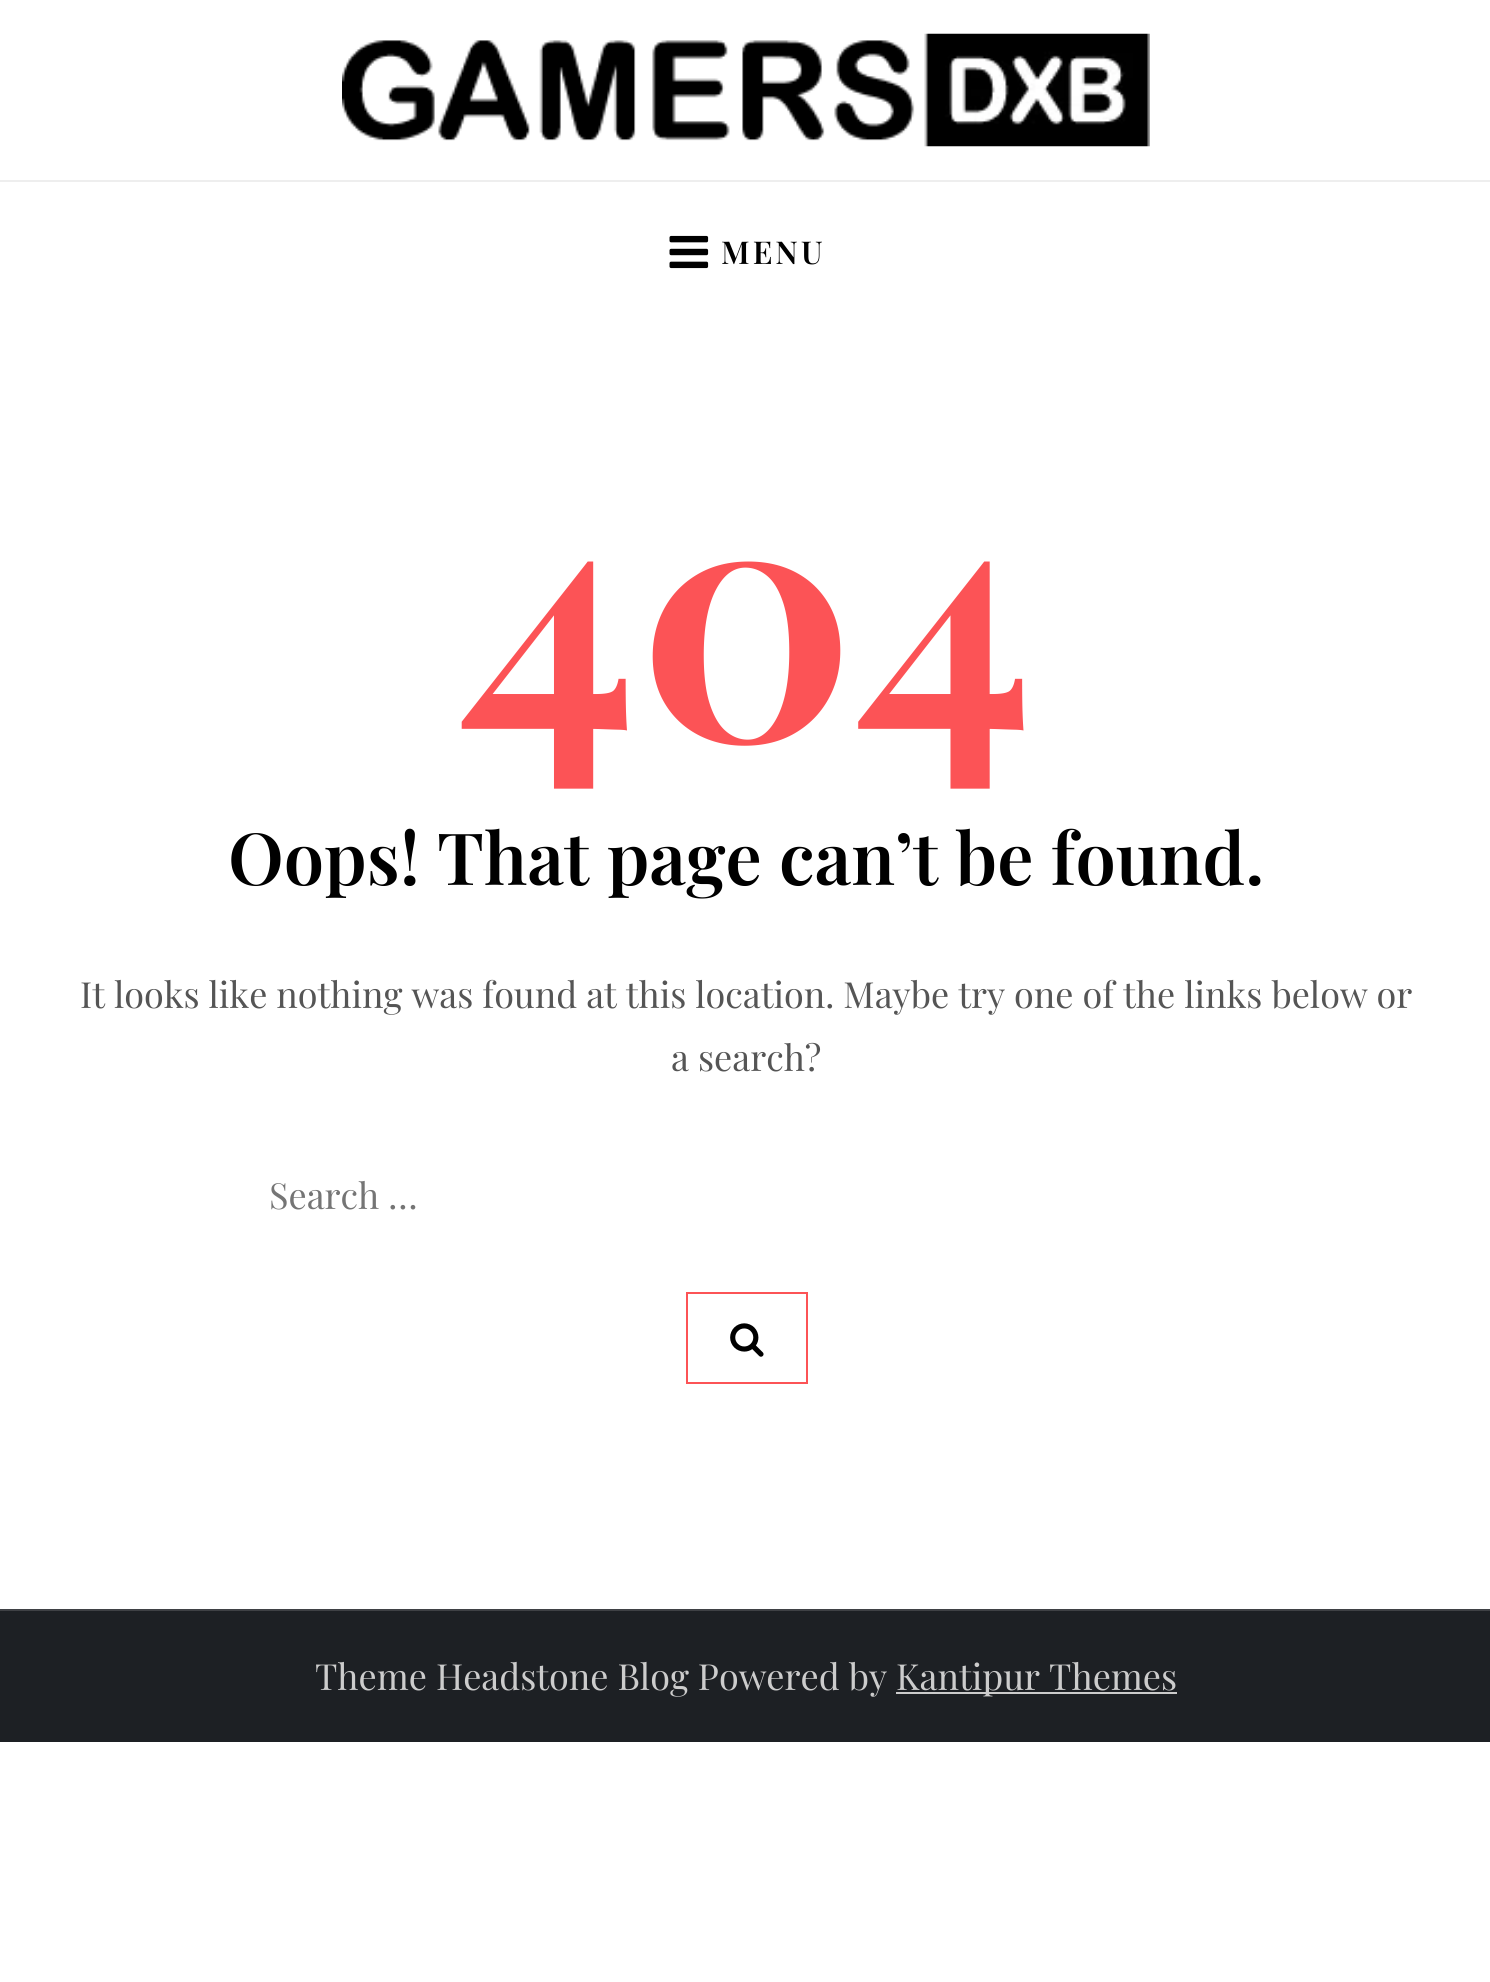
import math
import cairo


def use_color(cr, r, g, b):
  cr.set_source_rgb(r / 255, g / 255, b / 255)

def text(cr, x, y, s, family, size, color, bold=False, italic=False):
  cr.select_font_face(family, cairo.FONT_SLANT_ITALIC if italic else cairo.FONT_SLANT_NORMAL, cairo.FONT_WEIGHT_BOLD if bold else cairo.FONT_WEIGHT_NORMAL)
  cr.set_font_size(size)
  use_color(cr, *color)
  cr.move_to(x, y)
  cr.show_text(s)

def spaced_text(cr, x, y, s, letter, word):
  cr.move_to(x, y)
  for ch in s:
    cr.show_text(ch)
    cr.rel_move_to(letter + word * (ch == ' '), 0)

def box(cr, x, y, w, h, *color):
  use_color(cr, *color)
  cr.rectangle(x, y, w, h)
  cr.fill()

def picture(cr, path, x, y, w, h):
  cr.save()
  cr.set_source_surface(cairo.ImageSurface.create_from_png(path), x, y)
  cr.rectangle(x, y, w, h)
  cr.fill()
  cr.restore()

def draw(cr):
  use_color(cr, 255, 255, 255)
  cr.paint()
  picture(cr, "img_01.png", 342, 33, 808, 114)
  box(cr, 0, 180, 1490, 2, 238, 238, 238)
  picture(cr, "img_02.png", 669, 235, 40, 34)
  cr.rectangle(687, 1293, 120, 90)
  use_color(cr, 252, 83, 86)
  cr.stroke()
  picture(cr, "img_03.png", 730, 1323, 34, 34)
  box(cr, 0, 1611, 1490, 131, 29, 32, 36)
  box(cr, 0, 1609, 1490, 2, 63, 65, 69)
  box(cr, 896, 1692, 281, 2, 204, 204, 204)
  cr.select_font_face("Playfair Display SemiBold")
  cr.set_font_size(31.5)
  use_color(cr, 0, 0, 0)
  spaced_text(cr, 721, 264, "MENU", 3, 0)
  text(cr, 459, 741, "404", "Playfair Display", 338, (252, 83, 86), bold=True)
  text(cr, 228, 885, "Oops! That page can’t be found.", "Playfair Display SemiBold", 72, (0, 0, 0))
  text(cr, 80, 1008, "It looks like nothing was found at this location. Maybe try one of the links below or", "Playfair Display", 36, (85, 85, 85))
  text(cr, 671, 1071, "a search?", "Playfair Display", 36, (85, 85, 85))
  text(cr, 269, 1209, "Search …", "Playfair Display", 36, (117, 117, 117))
  text(cr, 315, 1690, "Theme Headstone Blog Powered by", "Playfair Display", 36, (204, 204, 204))
  text(cr, 896, 1690, "Kantipur Themes", "Playfair Display", 36, (204, 204, 204))


surface = cairo.ImageSurface(cairo.FORMAT_RGB24, 1490, 1982)
cr = cairo.Context(surface)
options = cairo.FontOptions()
options.set_hint_metrics(cairo.HINT_METRICS_OFF)
options.set_hint_style(cairo.HINT_STYLE_NONE)
cr.set_font_options(options)
cr.set_miter_limit(4)
draw(cr)
surface.write_to_png("out.png")
